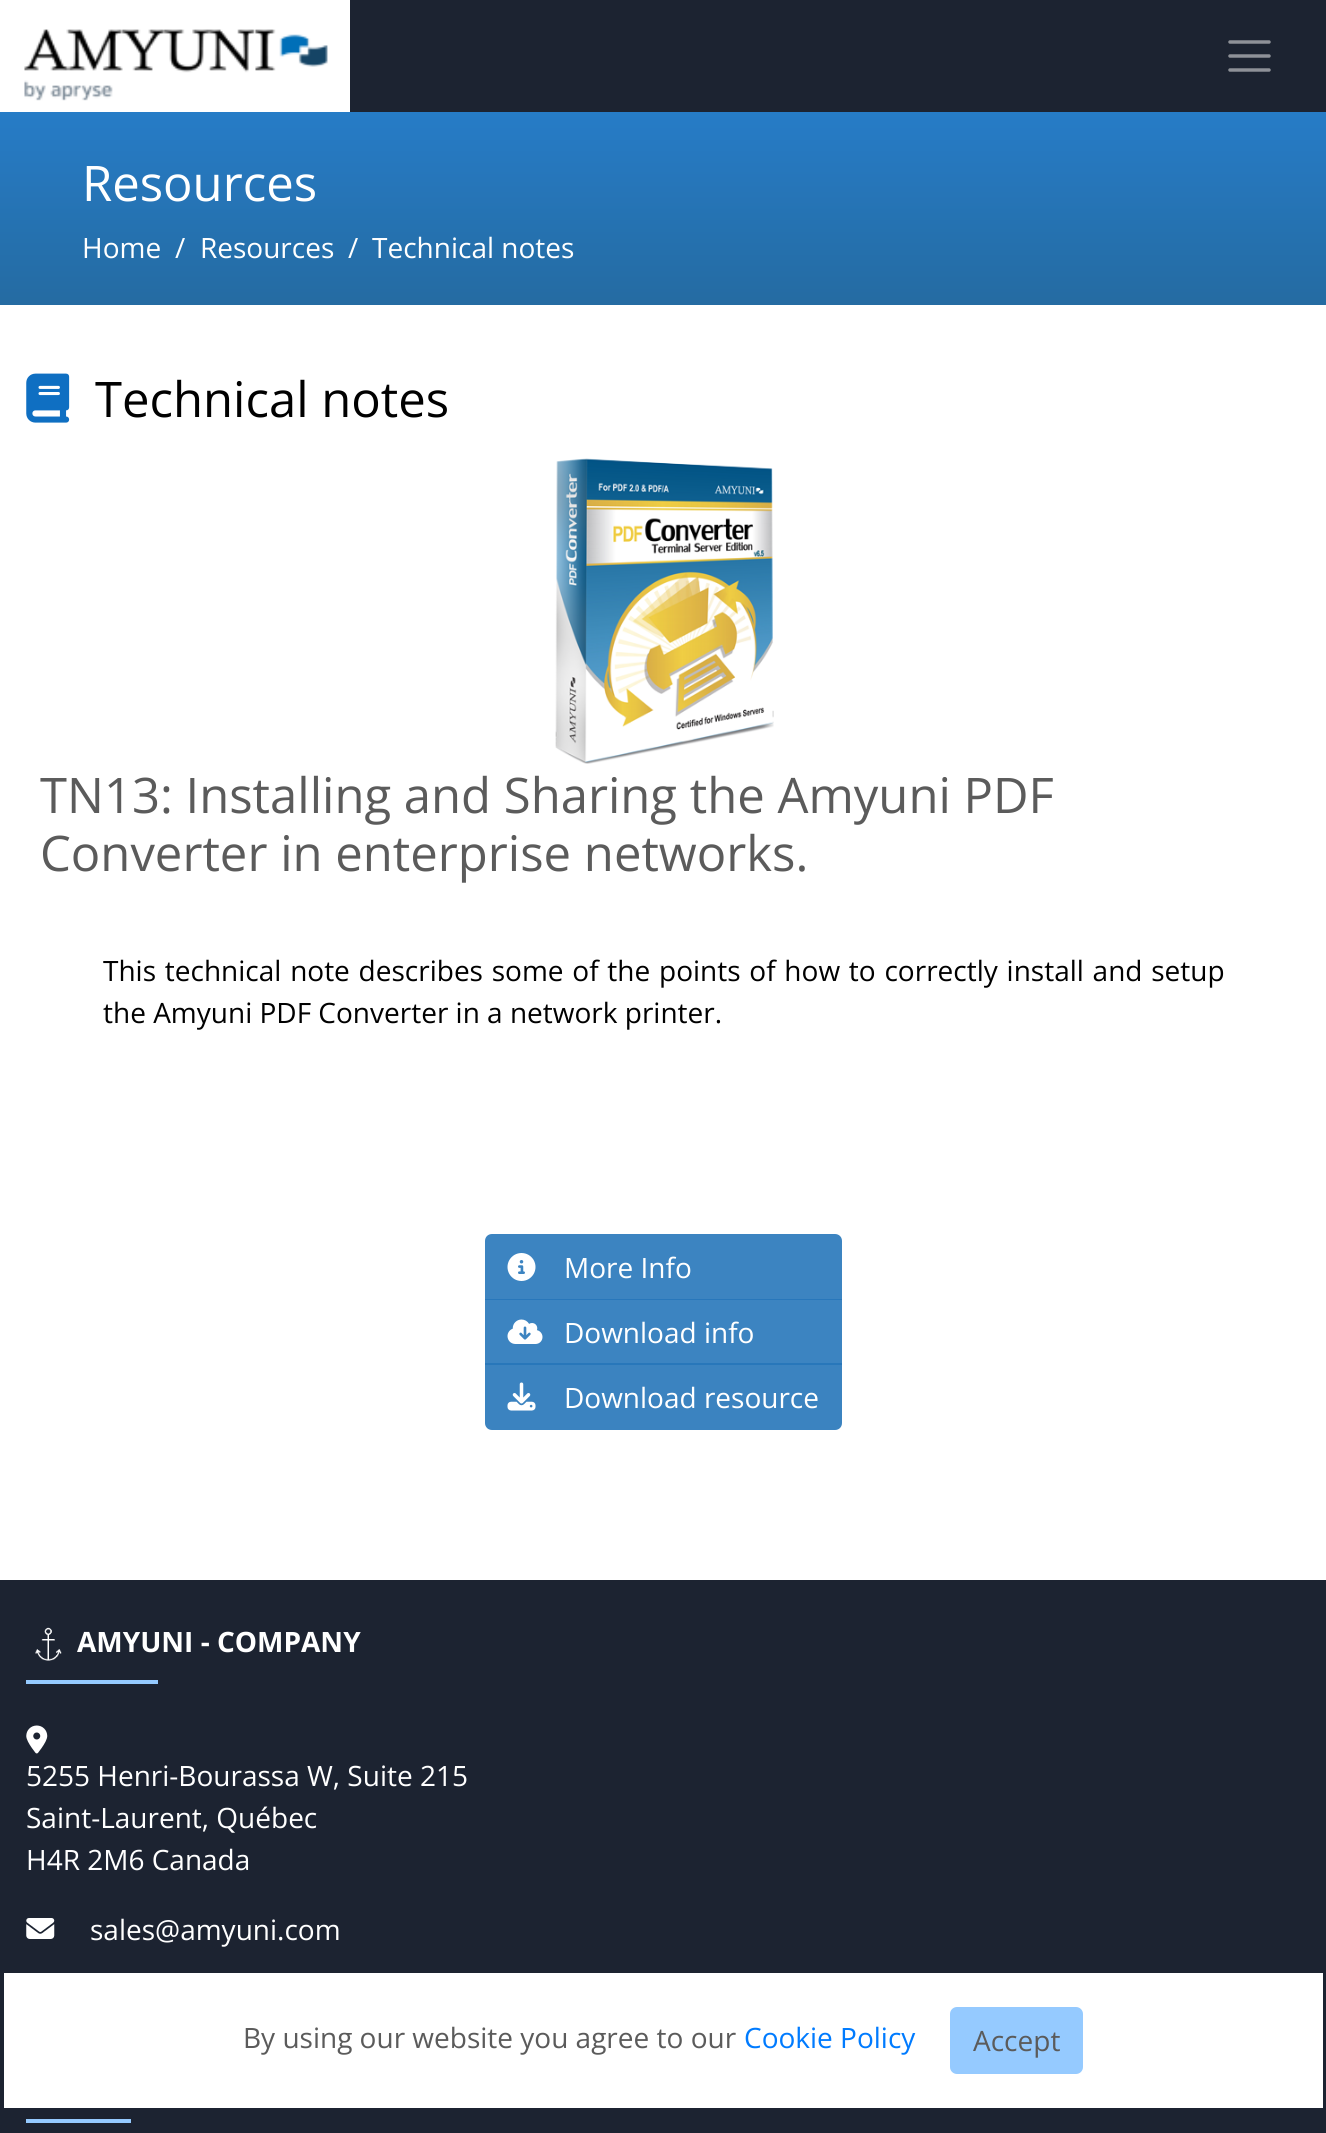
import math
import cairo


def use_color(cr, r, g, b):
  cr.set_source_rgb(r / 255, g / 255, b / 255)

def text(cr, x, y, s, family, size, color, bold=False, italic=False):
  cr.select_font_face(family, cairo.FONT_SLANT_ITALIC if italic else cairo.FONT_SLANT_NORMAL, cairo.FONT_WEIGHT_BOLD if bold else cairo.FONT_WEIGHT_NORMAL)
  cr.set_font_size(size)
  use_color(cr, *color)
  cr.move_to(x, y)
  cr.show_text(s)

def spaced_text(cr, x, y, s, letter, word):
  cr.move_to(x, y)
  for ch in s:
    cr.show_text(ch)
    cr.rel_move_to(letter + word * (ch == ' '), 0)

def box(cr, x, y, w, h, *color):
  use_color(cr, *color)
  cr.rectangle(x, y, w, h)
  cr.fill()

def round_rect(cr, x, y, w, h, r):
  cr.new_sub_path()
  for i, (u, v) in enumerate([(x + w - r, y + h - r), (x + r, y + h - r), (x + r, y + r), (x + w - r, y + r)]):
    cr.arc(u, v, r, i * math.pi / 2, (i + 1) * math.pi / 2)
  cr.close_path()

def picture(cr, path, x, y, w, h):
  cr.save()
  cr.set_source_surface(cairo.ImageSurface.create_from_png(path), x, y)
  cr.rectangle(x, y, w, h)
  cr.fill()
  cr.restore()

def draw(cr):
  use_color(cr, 28, 35, 49)
  cr.paint()
  picture(cr, "img_01.png", 0, 0, 350, 112)
  cr.new_path()
  cr.move_to(1230, 42)
  cr.line_to(1269, 42)
  cr.move_to(1230, 56)
  cr.line_to(1269, 56)
  cr.move_to(1230, 70)
  cr.line_to(1269, 70)
  use_color(cr, 142, 145, 152)
  cr.set_line_width(3.5)
  cr.set_line_cap(cairo.LINE_CAP_ROUND)
  cr.stroke()
  gradient = cairo.LinearGradient(663, 112, 663, 305)
  gradient.add_color_stop_rgba(0, 0.149, 0.486, 0.78, 1)
  gradient.add_color_stop_rgba(1, 0.145, 0.42, 0.635, 1)
  cr.set_source(gradient)
  cr.rectangle(0, 112, 1326, 193)
  cr.fill()
  box(cr, 0, 305, 1326, 1275, 255, 255, 255)
  box(cr, 485, 1300, 357, 65, 60, 132, 193)
  picture(cr, "img_02.png", 26, 373, 44, 50)
  picture(cr, "img_03.png", 555, 458, 219, 306)
  cr.new_path()
  cr.move_to(492, 1234)
  cr.line_to(835, 1234)
  cr.curve_to(839, 1234, 842, 1237, 842, 1241)
  cr.line_to(842, 1300)
  cr.line_to(485, 1300)
  cr.line_to(485, 1241)
  cr.curve_to(485, 1237, 488, 1234, 492, 1234)
  cr.close_path()
  cr.fill()
  box(cr, 485, 1299, 357, 1, 40, 119, 187)
  picture(cr, "img_04.png", 507, 1253, 29, 28)
  picture(cr, "img_05.png", 507, 1319, 36, 25)
  cr.set_source_rgba(0.149, 0.463, 0.729, 0.9)
  cr.new_path()
  cr.move_to(485, 1363)
  cr.line_to(842, 1363)
  cr.line_to(842, 1423)
  cr.curve_to(842, 1427, 839, 1430, 835, 1430)
  cr.line_to(492, 1430)
  cr.curve_to(488, 1430, 485, 1427, 485, 1423)
  cr.close_path()
  cr.fill()
  picture(cr, "img_06.png", 507, 1382, 29, 29)
  box(cr, 4, 1973, 1319, 135, 255, 255, 255)
  use_color(cr, 149, 202, 255)
  round_rect(cr, 950, 2007, 133, 67, 7)
  cr.fill()
  picture(cr, "img_07.png", 35, 1627, 27, 34)
  box(cr, 26, 1680, 132, 4, 149, 202, 255)
  picture(cr, "img_08.png", 26, 1725, 22, 29)
  picture(cr, "img_09.png", 26, 1918, 29, 21)
  box(cr, 26, 2119, 105, 4, 149, 202, 255)
  text(cr, 82, 201, "Resources", "Open Sans", 49, (255, 255, 255))
  text(cr, 82, 258, "Home", "Open Sans", 28, (255, 255, 255))
  text(cr, 175, 258, "/", "Open Sans", 28, (255, 255, 255))
  text(cr, 200, 258, "Resources", "Open Sans", 28, (255, 255, 255))
  text(cr, 348, 258, "/", "Open Sans", 28, (255, 255, 255))
  text(cr, 372, 258, "Technical notes", "Open Sans", 28, (255, 255, 255))
  text(cr, 95, 417, "Technical notes", "Open Sans", 49, (0, 0, 0))
  text(cr, 40, 813, "TN13: Installing and Sharing the Amyuni PDF", "Open Sans", 49, (91, 91, 91))
  text(cr, 40, 871, "Converter in enterprise networks.", "Open Sans", 49, (91, 91, 91))
  cr.set_font_size(28)
  use_color(cr, 0, 0, 0)
  spaced_text(cr, 103, 981, "This technical note describes some of the points of how to correctly install and setup", 0, 1.5)
  text(cr, 103, 1023, "the Amyuni PDF Converter in a network printer.", "Open Sans", 28, (0, 0, 0))
  text(cr, 564, 1278, "More Info", "Open Sans", 28, (255, 255, 255))
  text(cr, 564, 1343, "Download info", "Open Sans", 28, (255, 255, 255))
  text(cr, 564, 1408, "Download resource", "Open Sans", 28, (255, 255, 255))
  text(cr, 243, 2048, "By using our website you agree to our", "Open Sans", 28, (91, 91, 91))
  text(cr, 744, 2048, "Cookie Policy", "Open Sans", 28, (0, 123, 255))
  text(cr, 973, 2051, "Accept", "Open Sans", 28, (91, 91, 91))
  text(cr, 77, 1652, "AMYUNI - COMPANY", "Open Sans", 28, (255, 255, 255), bold=True)
  text(cr, 26, 1786, "5255 Henri-Bourassa W, Suite 215", "Open Sans", 28, (255, 255, 255))
  text(cr, 26, 1828, "Saint-Laurent, Québec", "Open Sans", 28, (255, 255, 255))
  text(cr, 26, 1870, "H4R 2M6 Canada", "Open Sans", 28, (255, 255, 255))
  text(cr, 90, 1940, "sales@amyuni.com", "Open Sans", 28, (255, 255, 255))


surface = cairo.ImageSurface(cairo.FORMAT_RGB24, 1326, 2133)
cr = cairo.Context(surface)
options = cairo.FontOptions()
options.set_hint_metrics(cairo.HINT_METRICS_OFF)
options.set_hint_style(cairo.HINT_STYLE_NONE)
cr.set_font_options(options)
cr.set_miter_limit(4)
draw(cr)
surface.write_to_png("out.png")
